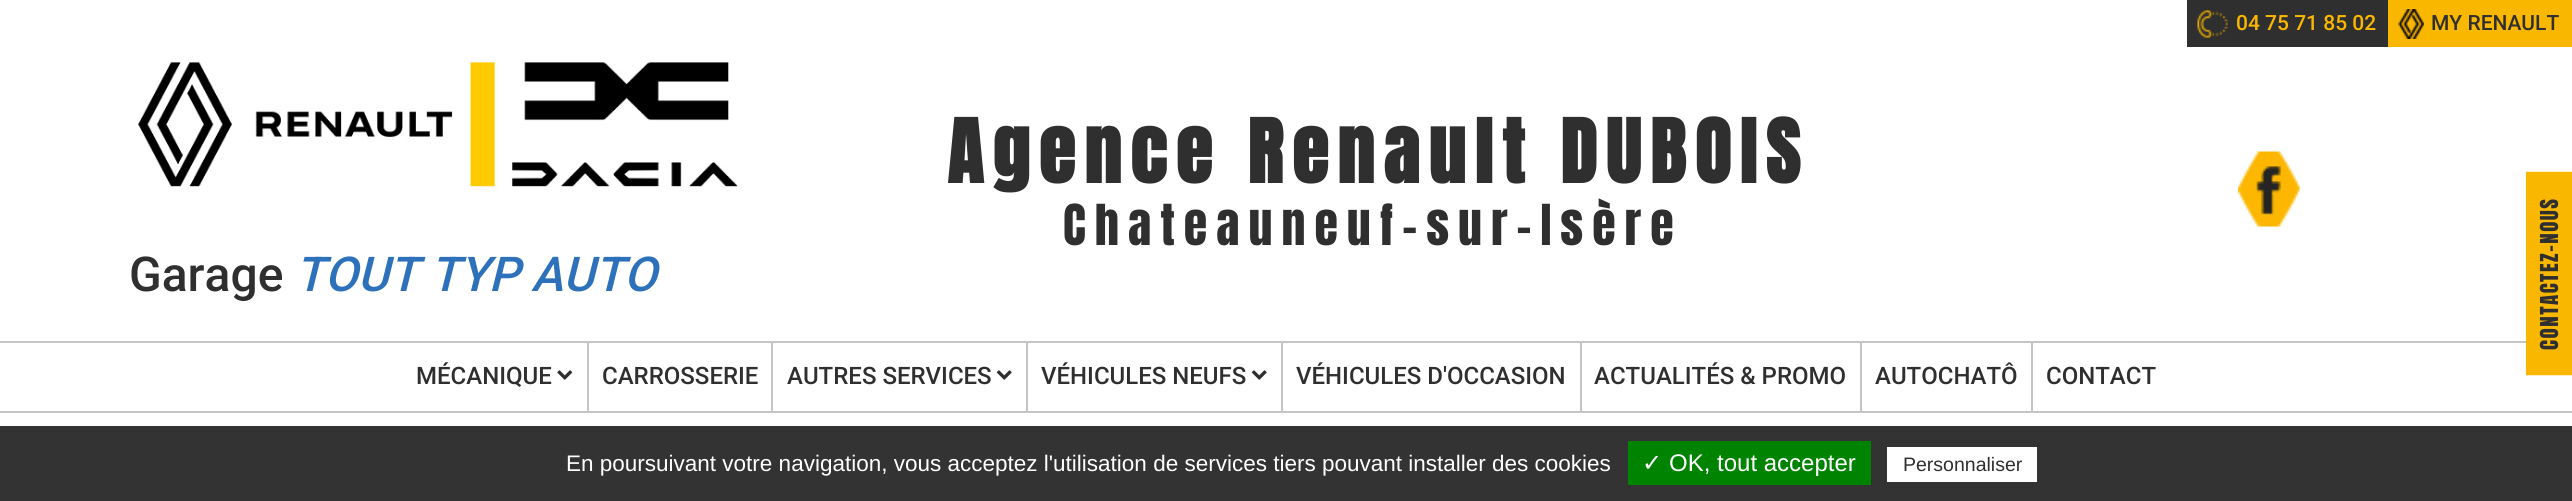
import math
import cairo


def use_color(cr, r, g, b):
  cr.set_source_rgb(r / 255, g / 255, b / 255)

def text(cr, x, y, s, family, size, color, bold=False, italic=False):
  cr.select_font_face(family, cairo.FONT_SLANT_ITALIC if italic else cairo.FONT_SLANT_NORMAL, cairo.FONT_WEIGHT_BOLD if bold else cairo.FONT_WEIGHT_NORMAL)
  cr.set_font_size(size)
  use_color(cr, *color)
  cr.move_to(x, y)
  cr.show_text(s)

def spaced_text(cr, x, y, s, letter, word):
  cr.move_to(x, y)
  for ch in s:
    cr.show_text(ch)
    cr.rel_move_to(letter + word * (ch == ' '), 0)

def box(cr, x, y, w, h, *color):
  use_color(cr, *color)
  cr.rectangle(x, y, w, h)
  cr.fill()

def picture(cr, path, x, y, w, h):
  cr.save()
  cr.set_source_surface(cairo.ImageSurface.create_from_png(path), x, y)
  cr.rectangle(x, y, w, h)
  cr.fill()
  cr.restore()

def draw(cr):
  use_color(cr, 255, 255, 255)
  cr.paint()
  box(cr, 2187, 0, 201, 47, 47, 47, 47)
  picture(cr, "img_01.png", 2197, 10, 31, 28)
  box(cr, 2388, 0, 184, 47, 250, 183, 0)
  picture(cr, "img_02.png", 2398, 9, 26, 30)
  picture(cr, "img_03.png", 2238, 151, 62, 76)
  picture(cr, "img_04.png", 138, 62, 600, 125)
  box(cr, 2526, 172, 46, 203, 250, 183, 0)
  cr.new_path()
  cr.move_to(2527, 374.5)
  cr.line_to(2527, 172.5)
  cr.line_to(2572, 172.5)
  cr.line_to(2572, 374.5)
  cr.close_path()
  cr.set_line_width(1.5)
  cr.stroke()
  box(cr, 0, 341, 2526, 2, 197, 197, 197)
  box(cr, 0, 411, 2572, 2, 197, 197, 197)
  box(cr, 587, 342, 2, 69, 197, 197, 197)
  picture(cr, "img_05.png", 557, 370, 16, 10)
  box(cr, 771, 342, 2, 69, 197, 197, 197)
  box(cr, 1026, 342, 2, 69, 197, 197, 197)
  picture(cr, "img_06.png", 996, 370, 16, 10)
  box(cr, 1281, 342, 2, 69, 197, 197, 197)
  picture(cr, "img_06.png", 1251, 370, 16, 10)
  box(cr, 1580, 342, 2, 69, 197, 197, 197)
  box(cr, 1860, 342, 2, 69, 197, 197, 197)
  box(cr, 2031, 342, 2, 69, 197, 197, 197)
  box(cr, 0, 426, 2572, 75, 51, 51, 51)
  box(cr, 1628, 441, 243, 44, 0, 131, 0)
  box(cr, 1887, 447, 150, 35, 255, 255, 255)
  text(cr, 2236, 30, "04 75 71 85 02", "Roboto Medium", 21, (250, 183, 0))
  text(cr, 2431, 30, "MY RENAULT", "Roboto Medium", 21, (47, 47, 47))
  cr.select_font_face("Anton", cairo.FONT_SLANT_NORMAL, cairo.FONT_WEIGHT_BOLD)
  cr.set_font_size(74.4)
  spaced_text(cr, 947, 183, "Agence Renault DUBOIS", 9, 0)
  cr.select_font_face("Anton")
  cr.set_font_size(48)
  spaced_text(cr, 1063, 245, "Chateauneuf-sur-Isère", 9, 0)
  text(cr, 129, 291, "Garage", "Roboto Medium", 48, (47, 47, 47))
  text(cr, 295, 291, "TOUT TYP AUTO", "Roboto Medium", 48, (44, 113, 186), italic=True)
  cr.select_font_face("Anton")
  cr.set_font_size(21)
  use_color(cr, 47, 47, 47)
  cr.save()
  cr.translate(2558, 350)
  cr.rotate(-90 * math.pi / 180)
  spaced_text(cr, 0, 0, "CONTACTEZ-NOUS", 1.5, 0)
  cr.restore()
  text(cr, 416, 384, "MÉCANIQUE", "Roboto Medium", 24, (47, 47, 47))
  text(cr, 602, 384, "CARROSSERIE", "Roboto Medium", 24, (47, 47, 47))
  text(cr, 787, 384, "AUTRES SERVICES", "Roboto Medium", 24, (47, 47, 47))
  text(cr, 1041, 384, "VÉHICULES NEUFS", "Roboto Medium", 24, (47, 47, 47))
  text(cr, 1296, 384, "VÉHICULES D'OCCASION", "Roboto Medium", 24, (47, 47, 47))
  text(cr, 1594, 384, "ACTUALITÉS & PROMO", "Roboto Medium", 24, (47, 47, 47))
  text(cr, 1875, 384, "AUTOCHATÔ", "Roboto Medium", 24, (47, 47, 47))
  text(cr, 2046, 384, "CONTACT", "Roboto Medium", 24, (47, 47, 47))
  text(cr, 566, 471, "En poursuivant votre navigation, vous acceptez l'utilisation de services tiers pouvant installer des cookies", "Liberation Sans", 22.5, (255, 255, 255))
  text(cr, 1642, 471, "✓", "DejaVu Sans", 24, (255, 255, 255))
  text(cr, 1669, 471, "OK, tout accepter", "Liberation Sans", 24, (255, 255, 255))
  text(cr, 1903, 471, "Personnaliser", "Liberation Sans", 19.5, (47, 47, 47))


surface = cairo.ImageSurface(cairo.FORMAT_RGB24, 2572, 501)
cr = cairo.Context(surface)
options = cairo.FontOptions()
options.set_hint_metrics(cairo.HINT_METRICS_OFF)
options.set_hint_style(cairo.HINT_STYLE_NONE)
cr.set_font_options(options)
cr.set_miter_limit(4)
draw(cr)
surface.write_to_png("out.png")
